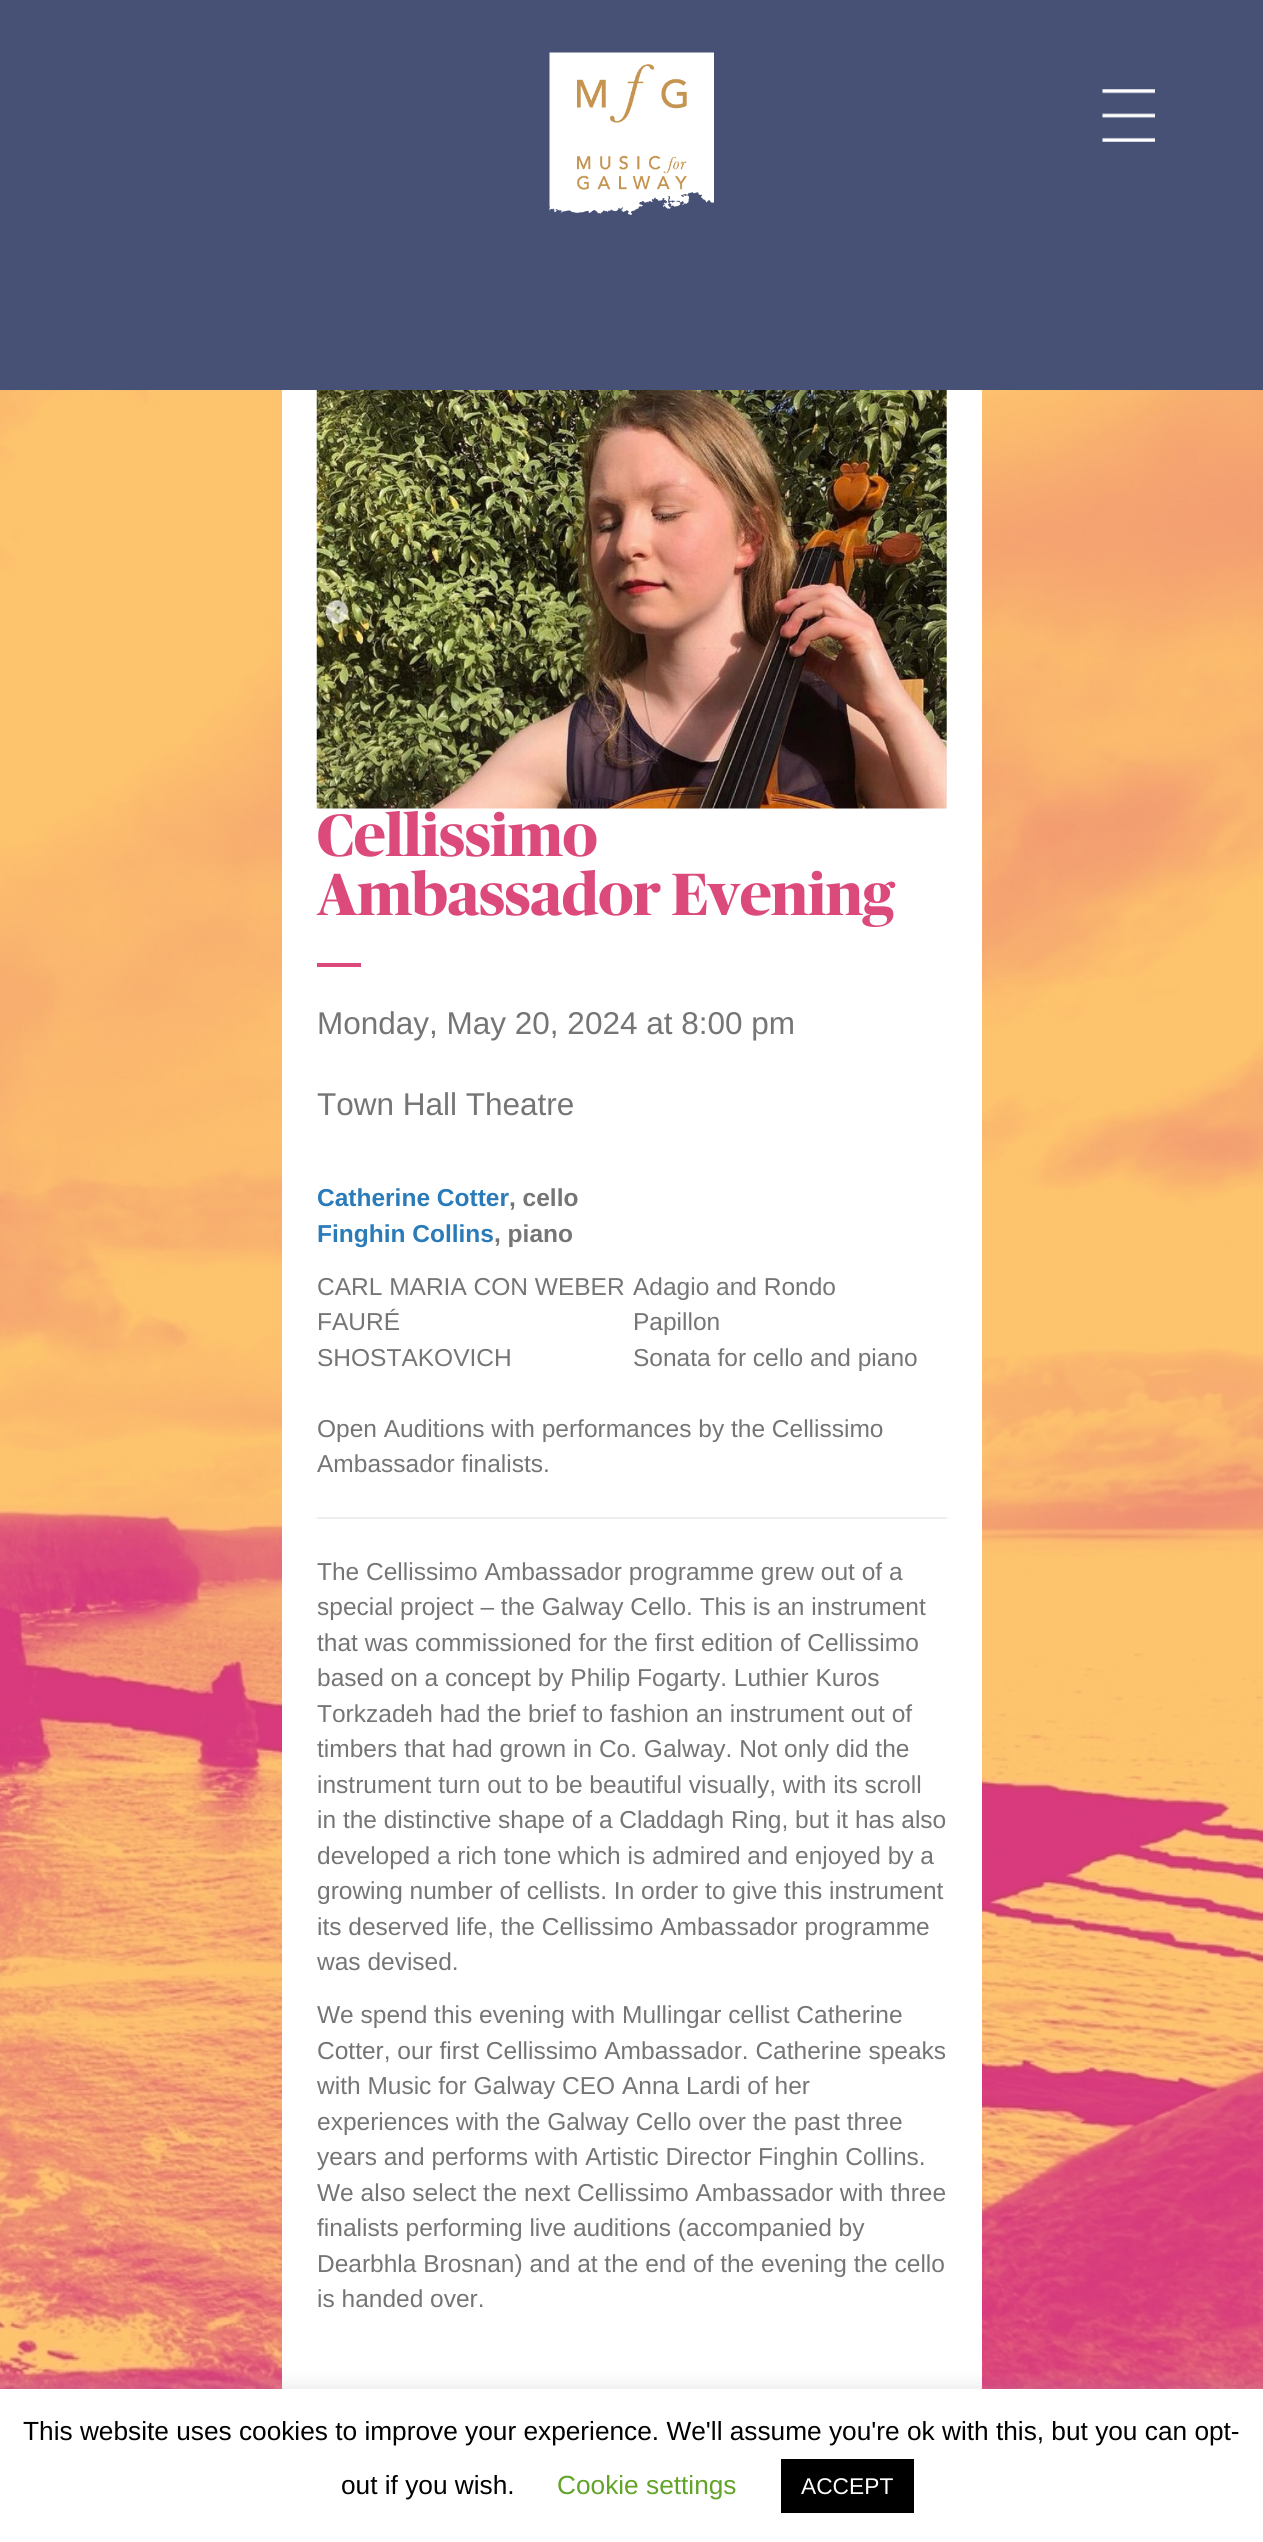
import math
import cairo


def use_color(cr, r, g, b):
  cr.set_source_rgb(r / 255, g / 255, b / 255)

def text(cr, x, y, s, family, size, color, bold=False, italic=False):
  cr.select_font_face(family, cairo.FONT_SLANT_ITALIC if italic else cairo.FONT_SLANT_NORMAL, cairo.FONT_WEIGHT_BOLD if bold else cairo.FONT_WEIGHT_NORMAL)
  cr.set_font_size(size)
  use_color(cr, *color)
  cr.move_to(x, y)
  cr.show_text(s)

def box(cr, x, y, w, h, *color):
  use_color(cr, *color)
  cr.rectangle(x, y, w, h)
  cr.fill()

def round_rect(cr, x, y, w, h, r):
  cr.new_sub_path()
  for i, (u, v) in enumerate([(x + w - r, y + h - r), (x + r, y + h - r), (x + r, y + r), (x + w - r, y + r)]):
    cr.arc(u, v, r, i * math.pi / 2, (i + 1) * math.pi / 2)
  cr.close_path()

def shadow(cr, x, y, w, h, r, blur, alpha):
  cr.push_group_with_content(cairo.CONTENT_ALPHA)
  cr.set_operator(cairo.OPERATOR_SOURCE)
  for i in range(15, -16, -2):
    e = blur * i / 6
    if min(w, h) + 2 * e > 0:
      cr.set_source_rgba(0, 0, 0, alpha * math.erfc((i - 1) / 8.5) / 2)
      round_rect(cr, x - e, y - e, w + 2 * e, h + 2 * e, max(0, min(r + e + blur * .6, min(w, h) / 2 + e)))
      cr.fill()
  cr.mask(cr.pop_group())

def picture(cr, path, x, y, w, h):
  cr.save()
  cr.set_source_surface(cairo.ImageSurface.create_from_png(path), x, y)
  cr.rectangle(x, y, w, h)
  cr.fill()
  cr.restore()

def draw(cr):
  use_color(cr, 255, 255, 255)
  cr.paint()
  box(cr, 0, 0, 1263, 390, 71, 81, 118)
  picture(cr, "img_01.png", 1102, 89, 53, 53)
  picture(cr, "img_02.png", 549, 52, 165, 163)
  picture(cr, "img_03.png", 0, 390, 1263, 1999)
  box(cr, 282, 390, 700, 1999, 255, 255, 255)
  picture(cr, "img_04.png", 316, 390, 631, 419)
  box(cr, 317, 963, 44, 4, 220, 74, 123)
  box(cr, 317, 1517, 630, 2, 238, 238, 238)
  use_color(cr, 172, 171, 171)
  shadow(cr, 0, 2387, 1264, 154, 0, 9, 0.3)
  box(cr, 0, 2389, 1263, 153, 255, 255, 255)
  box(cr, 781, 2459, 133, 54, 0, 0, 0)
  text(cr, 317, 856, "Cellissimo", "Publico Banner", 59.5, (220, 74, 123), bold=True)
  text(cr, 317, 915, "Ambassador Evening", "Publico Banner", 59.5, (220, 74, 123), bold=True)
  text(cr, 317, 1034, "Monday, May 20, 2024 at 8:00 pm", "Liberation Sans", 31.5, (117, 117, 117))
  text(cr, 317, 1115, "Town Hall Theatre", "Liberation Sans", 31.5, (117, 117, 117))
  text(cr, 317, 1206, "Catherine Cotter", "Liberation Sans", 24.5, (43, 123, 185), bold=True)
  text(cr, 509, 1206, ", cello", "Liberation Sans", 24.5, (117, 117, 117), bold=True)
  text(cr, 317, 1242, "Finghin Collins", "Liberation Sans", 24.5, (43, 123, 185), bold=True)
  text(cr, 494, 1242, ", piano", "Liberation Sans", 24.5, (117, 117, 117), bold=True)
  text(cr, 317, 1295, "CARL MARIA CON WEBER", "Liberation Sans", 24.5, (117, 117, 117))
  text(cr, 633, 1295, "Adagio and Rondo", "Liberation Sans", 24.5, (117, 117, 117))
  text(cr, 317, 1330, "FAURÉ", "Liberation Sans", 24.5, (117, 117, 117))
  text(cr, 633, 1330, "Papillon", "Liberation Sans", 24.5, (117, 117, 117))
  text(cr, 317, 1366, "SHOSTAKOVICH", "Liberation Sans", 24.5, (117, 117, 117))
  text(cr, 633, 1366, "Sonata for cello and piano", "Liberation Sans", 24.5, (117, 117, 117))
  text(cr, 317, 1437, "Open Auditions with performances by the Cellissimo", "Liberation Sans", 24.5, (117, 117, 117))
  text(cr, 317, 1472, "Ambassador finalists.", "Liberation Sans", 24.5, (117, 117, 117))
  text(cr, 317, 1580, "The Cellissimo Ambassador programme grew out of a", "Liberation Sans", 24.5, (117, 117, 117))
  text(cr, 317, 1615, "special project – the Galway Cello. This is an instrument", "Liberation Sans", 24.5, (117, 117, 117))
  text(cr, 317, 1651, "that was commissioned for the first edition of Cellissimo", "Liberation Sans", 24.5, (117, 117, 117))
  text(cr, 317, 1686, "based on a concept by Philip Fogarty. Luthier Kuros", "Liberation Sans", 24.5, (117, 117, 117))
  text(cr, 317, 1722, "Torkzadeh had the brief to fashion an instrument out of", "Liberation Sans", 24.5, (117, 117, 117))
  text(cr, 317, 1757, "timbers that had grown in Co. Galway. Not only did the", "Liberation Sans", 24.5, (117, 117, 117))
  text(cr, 317, 1793, "instrument turn out to be beautiful visually, with its scroll", "Liberation Sans", 24.5, (117, 117, 117))
  text(cr, 317, 1828, "in the distinctive shape of a Claddagh Ring, but it has also", "Liberation Sans", 24.5, (117, 117, 117))
  text(cr, 317, 1864, "developed a rich tone which is admired and enjoyed by a", "Liberation Sans", 24.5, (117, 117, 117))
  text(cr, 317, 1899, "growing number of cellists. In order to give this instrument", "Liberation Sans", 24.5, (117, 117, 117))
  text(cr, 317, 1935, "its deserved life, the Cellissimo Ambassador programme", "Liberation Sans", 24.5, (117, 117, 117))
  text(cr, 317, 1970, "was devised.", "Liberation Sans", 24.5, (117, 117, 117))
  text(cr, 317, 2023, "We spend this evening with Mullingar cellist Catherine", "Liberation Sans", 24.5, (117, 117, 117))
  text(cr, 317, 2059, "Cotter, our first Cellissimo Ambassador. Catherine speaks", "Liberation Sans", 24.5, (117, 117, 117))
  text(cr, 317, 2094, "with Music for Galway CEO Anna Lardi of her", "Liberation Sans", 24.5, (117, 117, 117))
  text(cr, 317, 2130, "experiences with the Galway Cello over the past three", "Liberation Sans", 24.5, (117, 117, 117))
  text(cr, 317, 2165, "years and performs with Artistic Director Finghin Collins.", "Liberation Sans", 24.5, (117, 117, 117))
  text(cr, 317, 2201, "We also select the next Cellissimo Ambassador with three", "Liberation Sans", 24.5, (117, 117, 117))
  text(cr, 317, 2236, "finalists performing live auditions (accompanied by", "Liberation Sans", 24.5, (117, 117, 117))
  text(cr, 317, 2272, "Dearbhla Brosnan) and at the end of the evening the cello", "Liberation Sans", 24.5, (117, 117, 117))
  text(cr, 317, 2307, "is handed over.", "Liberation Sans", 24.5, (117, 117, 117))
  text(cr, 23, 2440, "This website uses cookies to improve your experience. We'll assume you're ok with this, but you can opt-", "Liberation Sans", 26.25, (0, 0, 0))
  text(cr, 341, 2494, "out if you wish.", "Liberation Sans", 26.25, (0, 0, 0))
  text(cr, 557, 2494, "Cookie settings", "Liberation Sans", 26.25, (98, 163, 41))
  text(cr, 801, 2494, "ACCEPT", "Liberation Sans", 22.75, (255, 255, 255))


surface = cairo.ImageSurface(cairo.FORMAT_RGB24, 1263, 2542)
cr = cairo.Context(surface)
options = cairo.FontOptions()
options.set_hint_metrics(cairo.HINT_METRICS_OFF)
options.set_hint_style(cairo.HINT_STYLE_NONE)
cr.set_font_options(options)
cr.set_miter_limit(4)
draw(cr)
surface.write_to_png("out.png")
